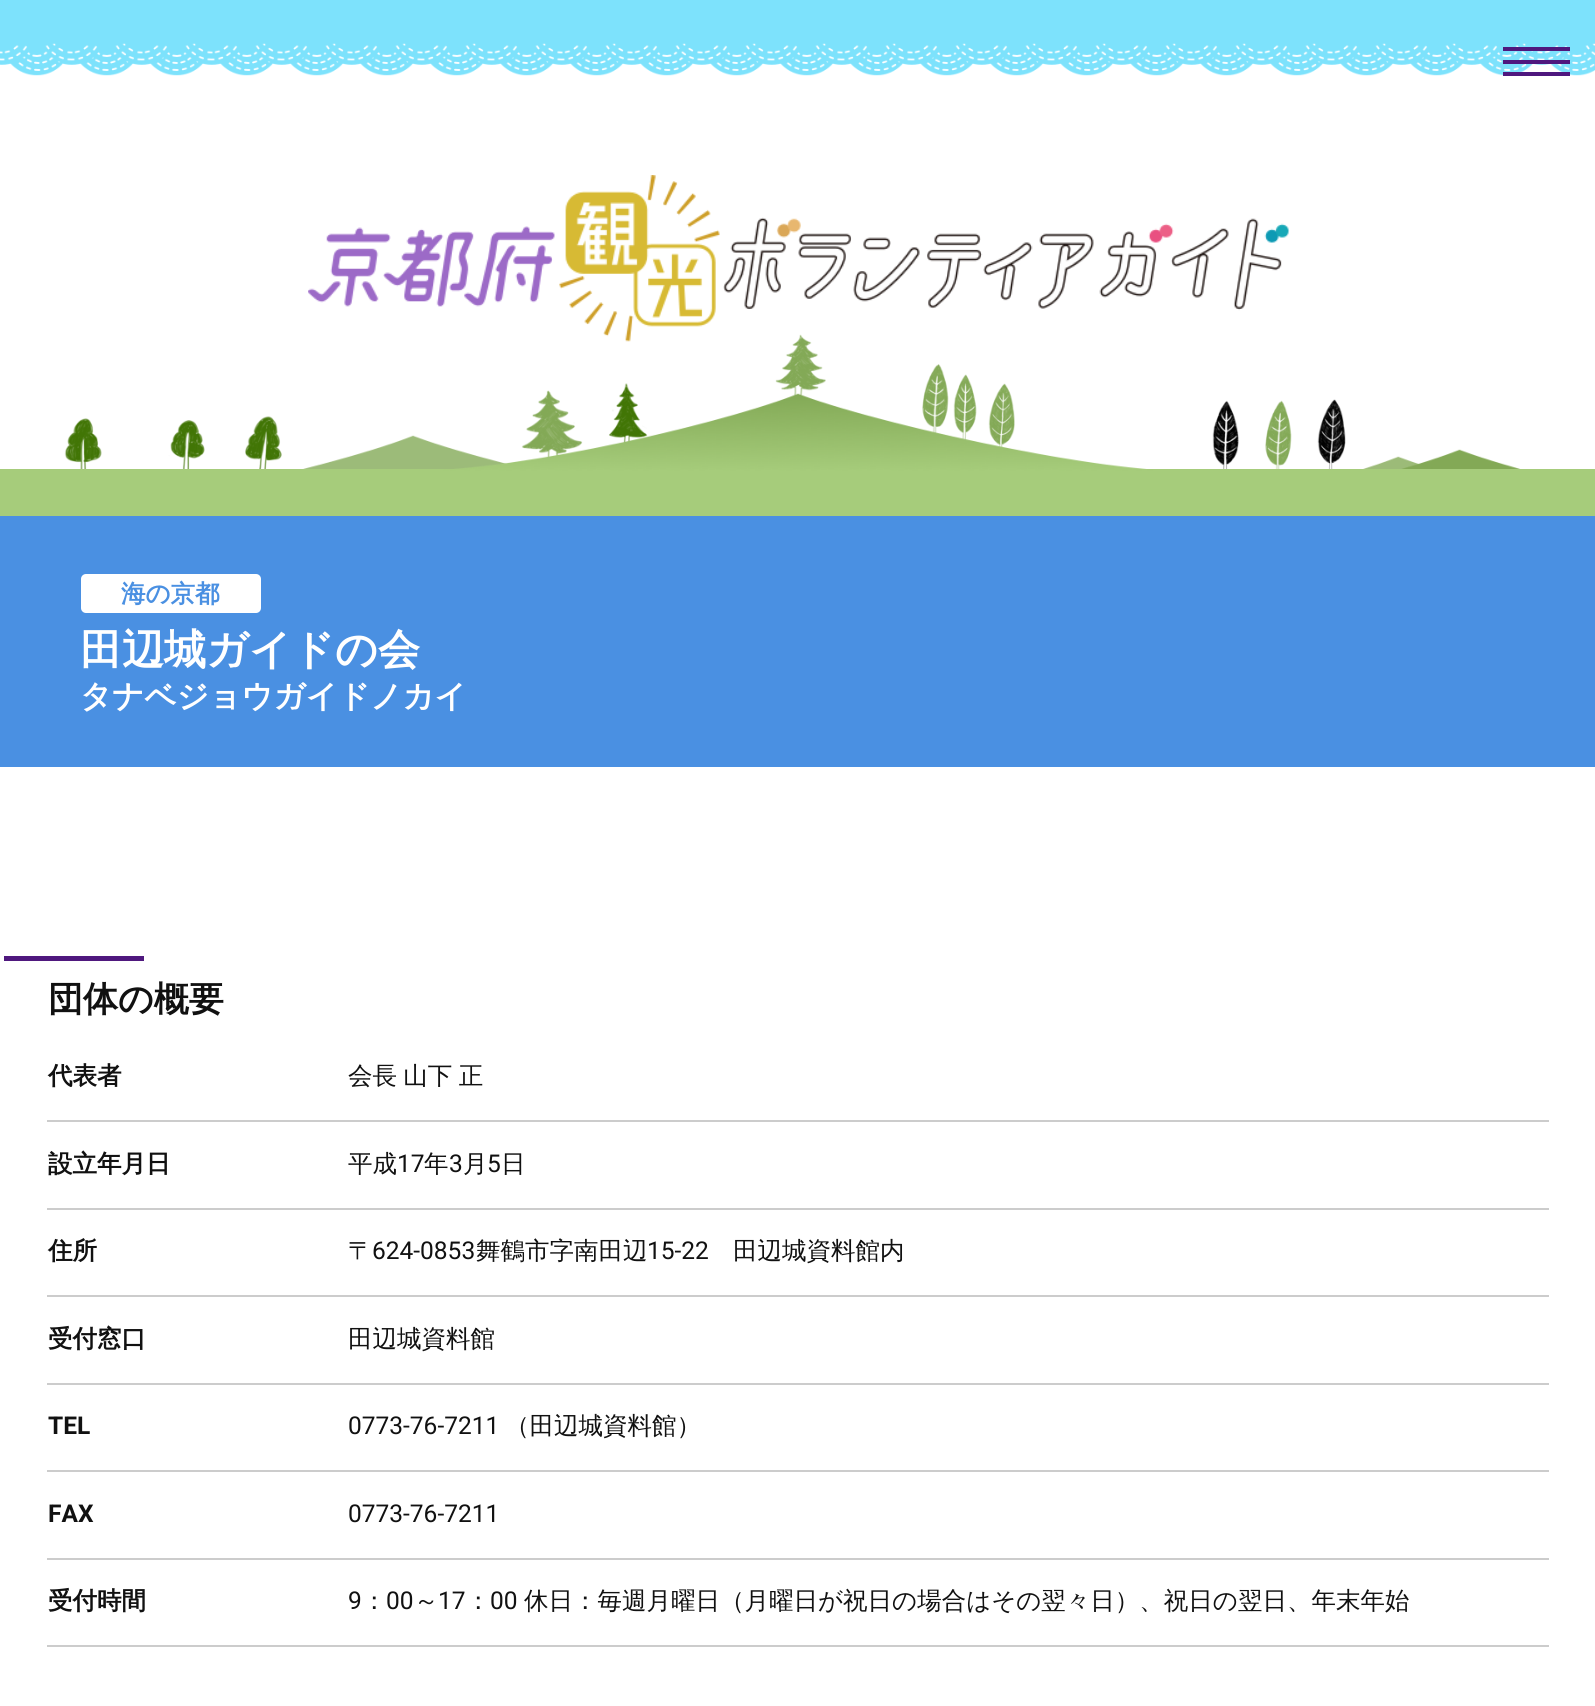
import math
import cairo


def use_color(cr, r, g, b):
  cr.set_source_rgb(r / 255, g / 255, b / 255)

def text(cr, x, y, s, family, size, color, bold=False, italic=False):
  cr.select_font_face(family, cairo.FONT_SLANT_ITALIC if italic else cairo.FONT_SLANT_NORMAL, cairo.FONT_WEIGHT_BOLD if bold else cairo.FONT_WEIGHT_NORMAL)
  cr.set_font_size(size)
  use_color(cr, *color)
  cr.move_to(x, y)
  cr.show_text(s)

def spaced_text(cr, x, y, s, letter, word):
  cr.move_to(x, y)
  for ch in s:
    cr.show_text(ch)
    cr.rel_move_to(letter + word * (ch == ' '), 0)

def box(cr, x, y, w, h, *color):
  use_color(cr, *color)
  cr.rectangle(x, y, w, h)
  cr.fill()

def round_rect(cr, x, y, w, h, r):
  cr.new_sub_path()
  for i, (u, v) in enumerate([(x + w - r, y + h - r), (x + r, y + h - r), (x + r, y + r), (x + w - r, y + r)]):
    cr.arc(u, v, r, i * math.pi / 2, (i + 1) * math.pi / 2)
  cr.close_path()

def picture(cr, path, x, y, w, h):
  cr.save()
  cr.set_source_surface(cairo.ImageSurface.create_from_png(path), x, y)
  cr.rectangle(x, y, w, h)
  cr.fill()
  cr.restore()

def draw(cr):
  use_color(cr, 255, 255, 255)
  cr.paint()
  picture(cr, "img_01.png", 0, 0, 1595, 516)
  picture(cr, "img_02.png", 308, 175, 982, 167)
  box(cr, 1503, 60, 67, 4, 79, 24, 126)
  box(cr, 1503, 47, 67, 4, 79, 24, 126)
  box(cr, 1503, 72, 67, 4, 79, 24, 126)
  box(cr, 0, 516, 1595, 251, 74, 144, 226)
  use_color(cr, 255, 255, 255)
  round_rect(cr, 81, 574, 180, 39, 5)
  cr.fill()
  box(cr, 4, 956, 140, 5, 79, 24, 126)
  box(cr, 47, 1120, 1502, 2, 204, 204, 204)
  box(cr, 47, 1208, 1502, 2, 204, 204, 204)
  box(cr, 47, 1295, 1502, 2, 204, 204, 204)
  box(cr, 47, 1383, 1502, 2, 204, 204, 204)
  box(cr, 47, 1470, 1502, 2, 204, 204, 204)
  box(cr, 47, 1558, 1502, 2, 204, 204, 204)
  box(cr, 47, 1645, 1502, 2, 204, 204, 204)
  text(cr, 121, 602, "海の京都", "WenQuanYi Zen Hei", 24.5, (74, 144, 226), bold=True)
  text(cr, 80, 664, "田辺城ガイドの会", "WenQuanYi Zen Hei", 42, (255, 255, 255), bold=True)
  text(cr, 80, 707, "タナベジョウガイドノカイ", "WenQuanYi Zen Hei", 31.5, (255, 255, 255), bold=True)
  text(cr, 48, 1011, "団体の概要", "WenQuanYi Zen Hei", 35, (17, 17, 17), bold=True)
  text(cr, 48, 1084, "代表者", "WenQuanYi Zen Hei", 24.5, (17, 17, 17), bold=True)
  cr.select_font_face("WenQuanYi Zen Hei Medium")
  spaced_text(cr, 348, 1084, "会長 山下 正", 0, -1)
  text(cr, 48, 1172, "設立年月日", "WenQuanYi Zen Hei", 24.5, (17, 17, 17), bold=True)
  text(cr, 348, 1172, "平成", "WenQuanYi Zen Hei Medium", 24.5, (17, 17, 17))
  text(cr, 397, 1172, "17", "Roboto", 24.5, (17, 17, 17))
  text(cr, 424, 1172, "年", "WenQuanYi Zen Hei Medium", 24.5, (17, 17, 17))
  text(cr, 449, 1172, "3", "Roboto", 24.5, (17, 17, 17))
  text(cr, 463, 1172, "月", "WenQuanYi Zen Hei Medium", 24.5, (17, 17, 17))
  text(cr, 487, 1172, "5", "Roboto", 24.5, (17, 17, 17))
  text(cr, 501, 1172, "日", "WenQuanYi Zen Hei Medium", 24.5, (17, 17, 17))
  text(cr, 48, 1259, "住所", "WenQuanYi Zen Hei", 24.5, (17, 17, 17), bold=True)
  text(cr, 348, 1259, "〒", "WenQuanYi Zen Hei Medium", 24.5, (17, 17, 17))
  text(cr, 372, 1259, "624-0853", "Roboto", 24.5, (17, 17, 17))
  text(cr, 476, 1259, "舞鶴市字南田辺", "WenQuanYi Zen Hei Medium", 24.5, (17, 17, 17))
  text(cr, 647, 1259, "15-22", "Roboto", 24.5, (17, 17, 17))
  text(cr, 733, 1259, "田辺城資料館内", "WenQuanYi Zen Hei Medium", 24.5, (17, 17, 17))
  text(cr, 48, 1347, "受付窓口", "WenQuanYi Zen Hei", 24.5, (17, 17, 17), bold=True)
  text(cr, 348, 1347, "田辺城資料館", "WenQuanYi Zen Hei Medium", 24.5, (17, 17, 17))
  text(cr, 48, 1434, "TEL", "Roboto", 24.5, (17, 17, 17), bold=True)
  text(cr, 348, 1434, "0773-76-7211", "Roboto", 24.5, (17, 17, 17))
  text(cr, 505, 1434, "（田辺城資料館）", "WenQuanYi Zen Hei Medium", 24.5, (17, 17, 17))
  text(cr, 48, 1522, "FAX", "Roboto", 24.5, (17, 17, 17), bold=True)
  text(cr, 348, 1522, "0773-76-7211", "Roboto", 24.5, (17, 17, 17))
  text(cr, 48, 1609, "受付時間", "WenQuanYi Zen Hei", 24.5, (17, 17, 17), bold=True)
  text(cr, 348, 1609, "9", "Roboto", 24.5, (17, 17, 17))
  text(cr, 362, 1609, "：", "WenQuanYi Zen Hei Medium", 24.5, (17, 17, 17))
  text(cr, 386, 1609, "00", "Roboto", 24.5, (17, 17, 17))
  text(cr, 414, 1609, "～", "WenQuanYi Zen Hei Medium", 24.5, (17, 17, 17))
  text(cr, 438, 1609, "17", "Roboto", 24.5, (17, 17, 17))
  text(cr, 466, 1609, "：", "WenQuanYi Zen Hei Medium", 24.5, (17, 17, 17))
  text(cr, 490, 1609, "00", "Roboto", 24.5, (17, 17, 17))
  text(cr, 524, 1609, "休日：毎週月曜日（月曜日が祝日の場合はその翌々日）、祝日の翌日、年末年始", "WenQuanYi Zen Hei Medium", 24.5, (17, 17, 17))


surface = cairo.ImageSurface(cairo.FORMAT_RGB24, 1595, 1706)
cr = cairo.Context(surface)
options = cairo.FontOptions()
options.set_hint_metrics(cairo.HINT_METRICS_OFF)
options.set_hint_style(cairo.HINT_STYLE_NONE)
cr.set_font_options(options)
cr.set_miter_limit(4)
draw(cr)
surface.write_to_png("out.png")
